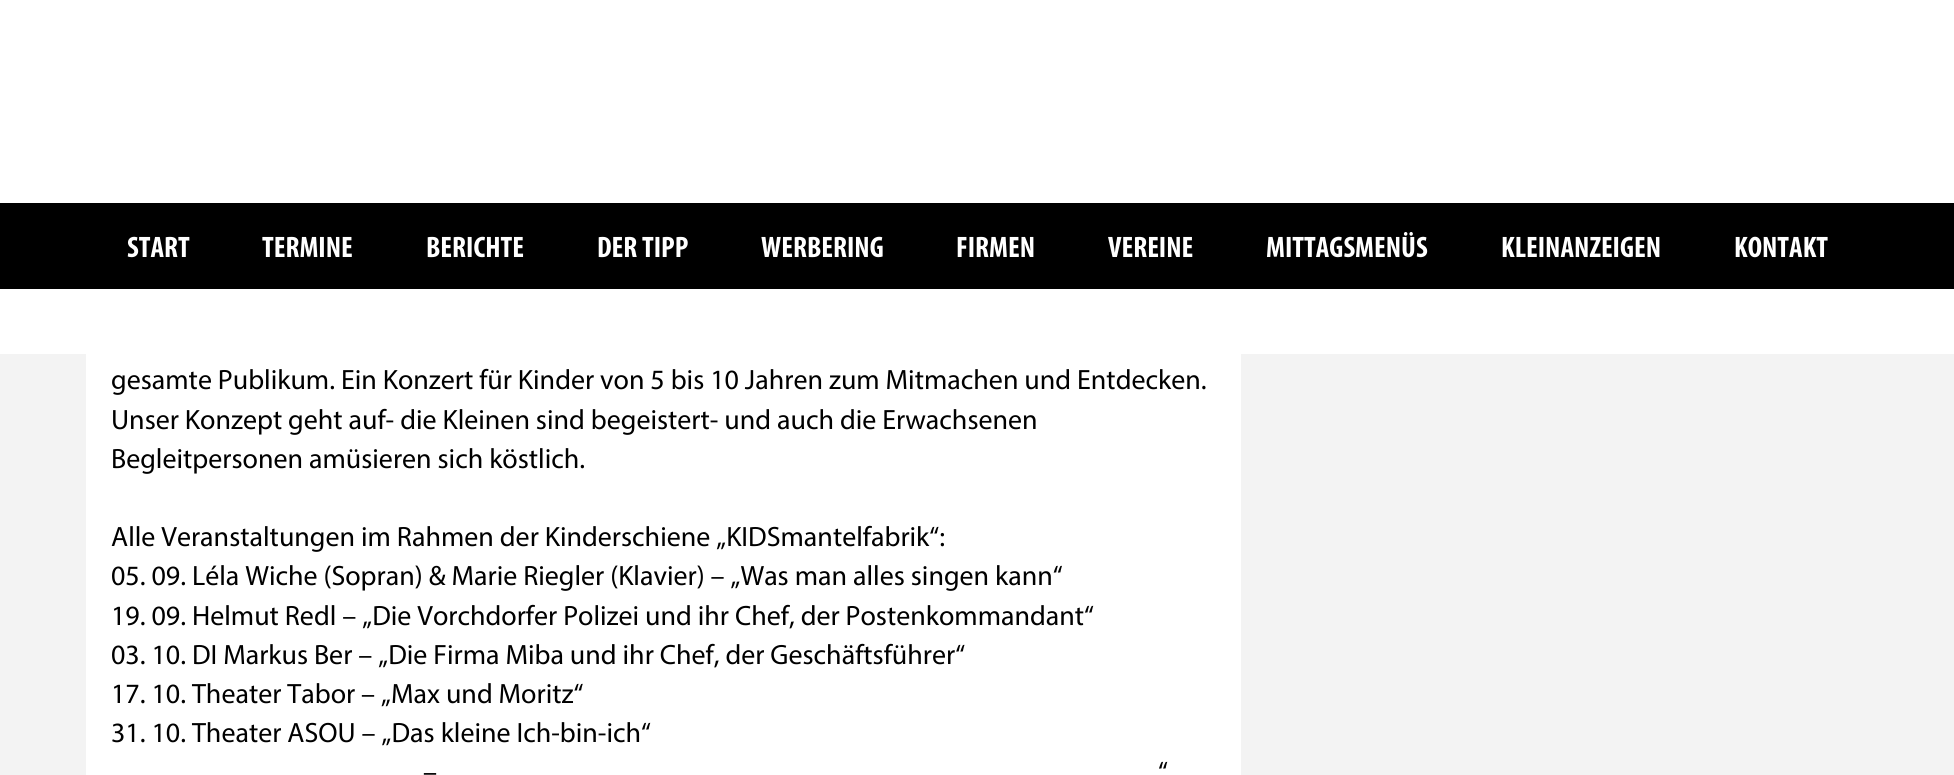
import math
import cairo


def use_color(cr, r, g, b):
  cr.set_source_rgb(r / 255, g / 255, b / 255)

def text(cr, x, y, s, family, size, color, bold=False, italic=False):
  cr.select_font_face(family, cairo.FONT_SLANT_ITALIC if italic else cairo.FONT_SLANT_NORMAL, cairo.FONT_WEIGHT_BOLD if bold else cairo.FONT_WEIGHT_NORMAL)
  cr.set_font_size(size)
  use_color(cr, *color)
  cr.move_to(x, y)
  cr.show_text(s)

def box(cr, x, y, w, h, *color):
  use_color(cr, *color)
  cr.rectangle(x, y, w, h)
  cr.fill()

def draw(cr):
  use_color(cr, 243, 243, 243)
  cr.paint()
  box(cr, 0, 0, 1954, 354, 255, 255, 255)
  box(cr, 0, 203, 1954, 86, 0, 0, 0)
  box(cr, 86, 354, 1155, 421, 255, 255, 255)
  text(cr, 127, 257, "START", "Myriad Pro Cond", 29.75, (255, 255, 255), bold=True)
  text(cr, 262, 257, "TERMINE", "Myriad Pro Cond", 29.75, (255, 255, 255), bold=True)
  text(cr, 426, 257, "BERICHTE", "Myriad Pro Cond", 29.75, (255, 255, 255), bold=True)
  text(cr, 597, 257, "DER TIPP", "Myriad Pro Cond", 29.75, (255, 255, 255), bold=True)
  text(cr, 761, 257, "WERBERING", "Myriad Pro Cond", 29.75, (255, 255, 255), bold=True)
  text(cr, 956, 257, "FIRMEN", "Myriad Pro Cond", 29.75, (255, 255, 255), bold=True)
  text(cr, 1108, 257, "VEREINE", "Myriad Pro Cond", 29.75, (255, 255, 255), bold=True)
  text(cr, 1266, 257, "MITTAGSMENÜS", "Myriad Pro Cond", 29.75, (255, 255, 255), bold=True)
  text(cr, 1501, 257, "KLEINANZEIGEN", "Myriad Pro Cond", 29.75, (255, 255, 255), bold=True)
  text(cr, 1734, 257, "KONTAKT", "Myriad Pro Cond", 29.75, (255, 255, 255), bold=True)
  text(cr, 111, 389, "gesamte Publikum. Ein Konzert für Kinder von 5 bis 10 Jahren zum Mitmachen und Entdecken.", "Myriad", 28, (0, 0, 0))
  text(cr, 111, 429, "Unser Konzept geht auf- die Kleinen sind begeistert- und auch die Erwachsenen", "Myriad", 28, (0, 0, 0))
  text(cr, 111, 468, "Begleitpersonen amüsieren sich köstlich.", "Myriad", 28, (0, 0, 0))
  text(cr, 111, 546, "Alle Veranstaltungen im Rahmen der Kinderschiene „KIDSmantelfabrik“:", "Myriad", 28, (0, 0, 0))
  text(cr, 111, 585, "05. 09. Léla Wiche (Sopran) & Marie Riegler (Klavier) – „Was man alles singen kann“", "Myriad", 28, (0, 0, 0))
  text(cr, 111, 625, "19. 09. Helmut Redl – „Die Vorchdorfer Polizei und ihr Chef, der Postenkommandant“", "Myriad", 28, (0, 0, 0))
  text(cr, 111, 664, "03. 10. DI Markus Ber – „Die Firma Miba und ihr Chef, der Geschäftsführer“", "Myriad", 28, (0, 0, 0))
  text(cr, 111, 703, "17. 10. Theater Tabor – „Max und Moritz“", "Myriad", 28, (0, 0, 0))
  text(cr, 111, 742, "31. 10. Theater ASOU – „Das kleine Ich-bin-ich“", "Myriad", 28, (0, 0, 0))
  text(cr, 1158, 781, "“", "Myriad", 28, (0, 0, 0))
  text(cr, 423, 781, "–", "Myriad", 28, (0, 0, 0))


surface = cairo.ImageSurface(cairo.FORMAT_RGB24, 1954, 775)
cr = cairo.Context(surface)
options = cairo.FontOptions()
options.set_hint_metrics(cairo.HINT_METRICS_OFF)
options.set_hint_style(cairo.HINT_STYLE_NONE)
cr.set_font_options(options)
cr.set_miter_limit(4)
draw(cr)
surface.write_to_png("out.png")
